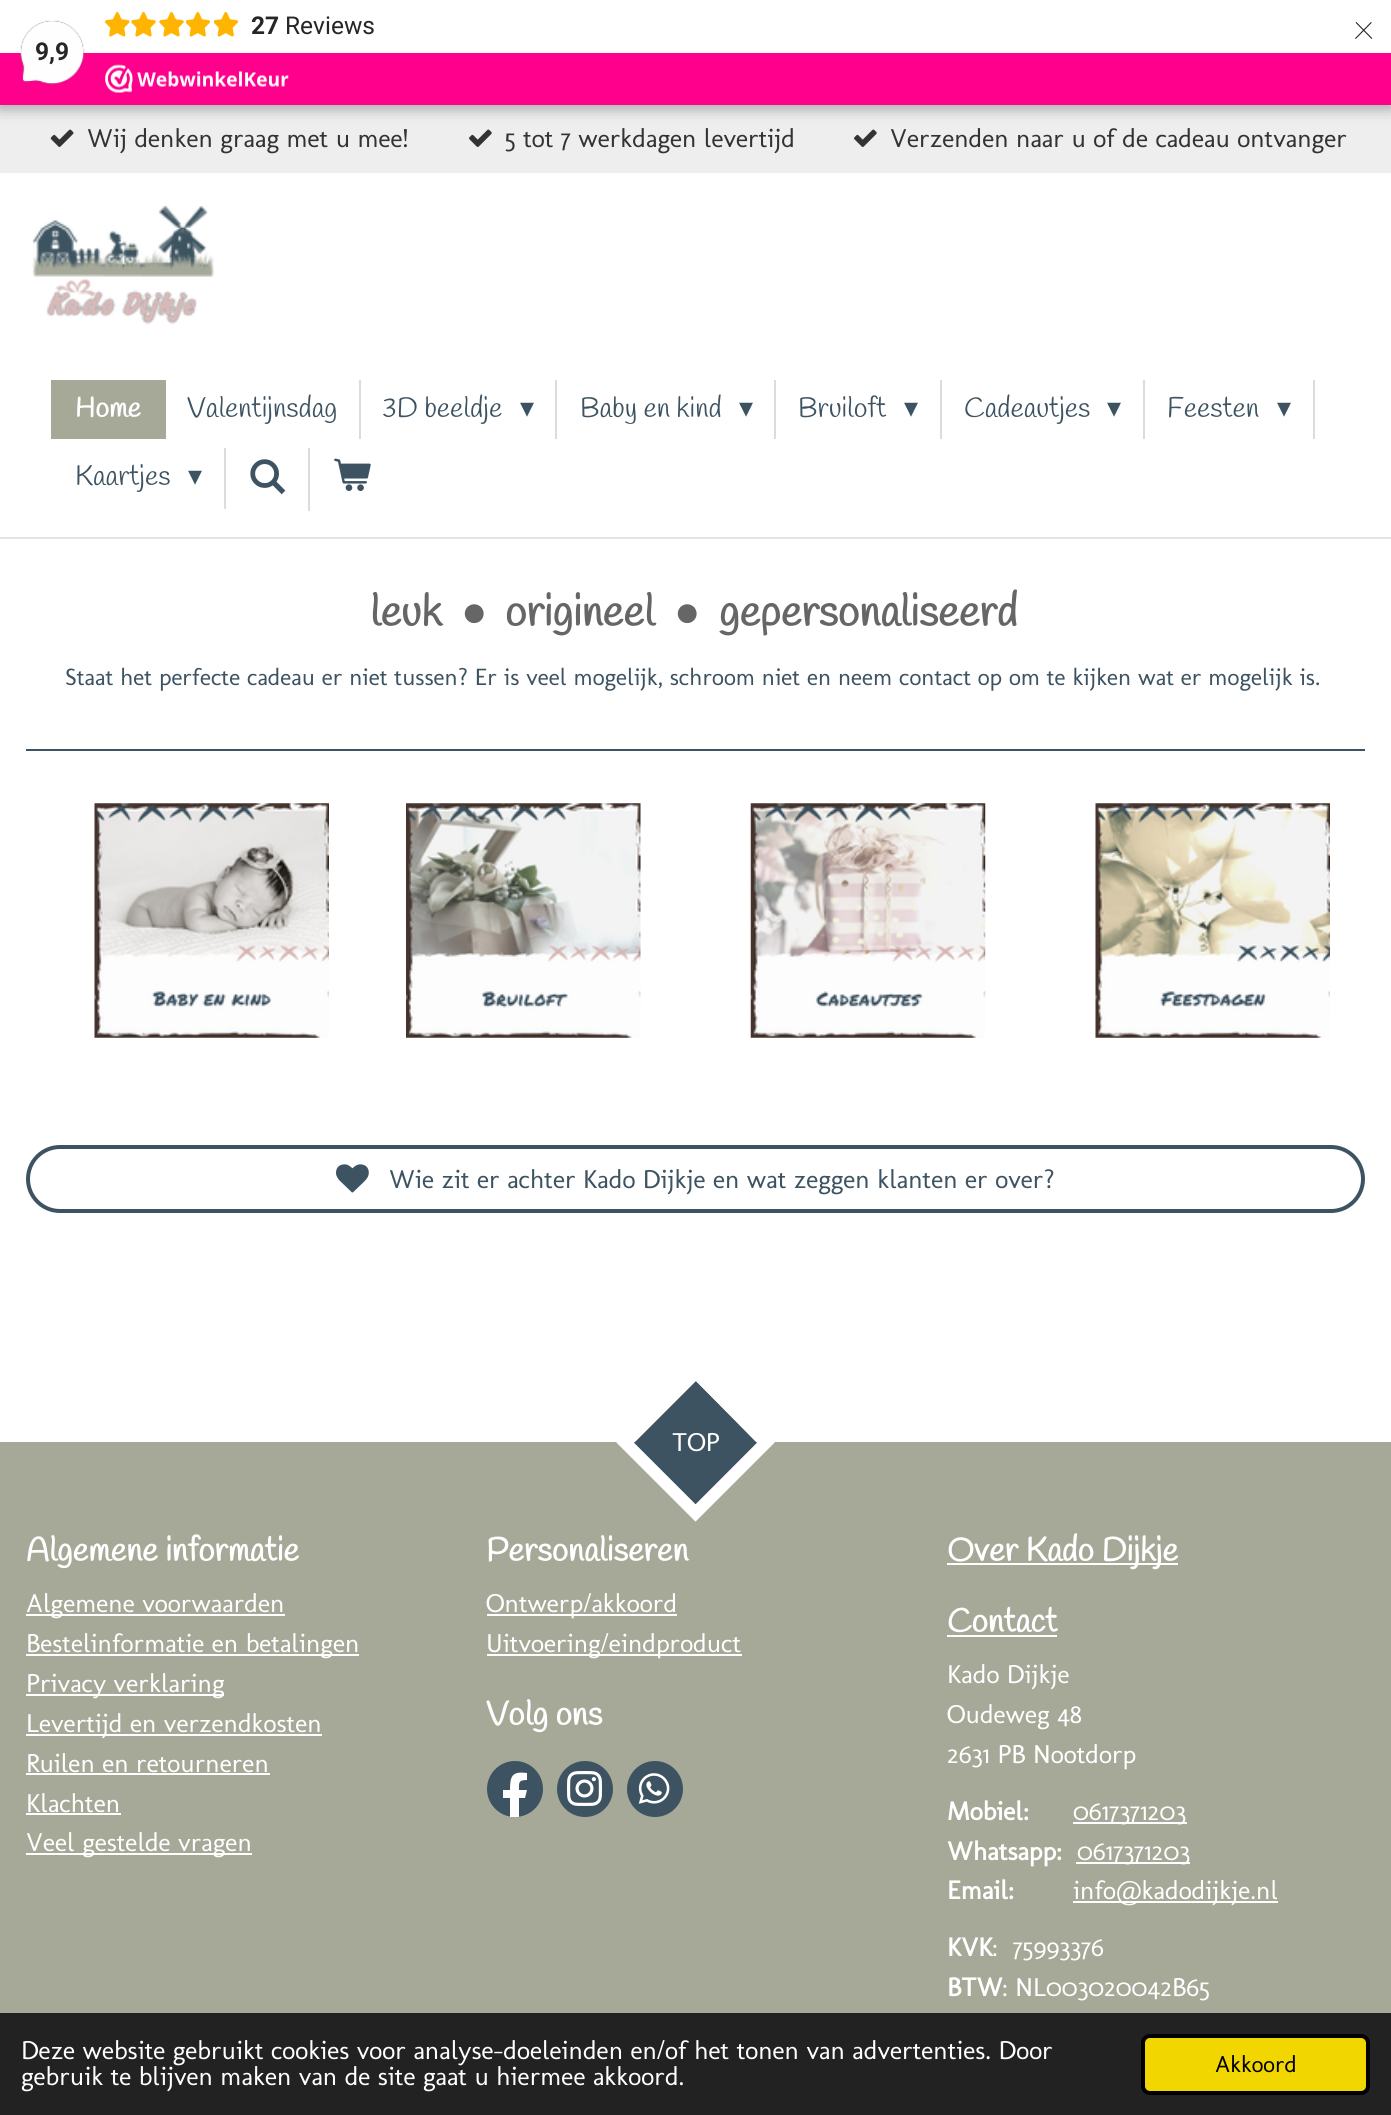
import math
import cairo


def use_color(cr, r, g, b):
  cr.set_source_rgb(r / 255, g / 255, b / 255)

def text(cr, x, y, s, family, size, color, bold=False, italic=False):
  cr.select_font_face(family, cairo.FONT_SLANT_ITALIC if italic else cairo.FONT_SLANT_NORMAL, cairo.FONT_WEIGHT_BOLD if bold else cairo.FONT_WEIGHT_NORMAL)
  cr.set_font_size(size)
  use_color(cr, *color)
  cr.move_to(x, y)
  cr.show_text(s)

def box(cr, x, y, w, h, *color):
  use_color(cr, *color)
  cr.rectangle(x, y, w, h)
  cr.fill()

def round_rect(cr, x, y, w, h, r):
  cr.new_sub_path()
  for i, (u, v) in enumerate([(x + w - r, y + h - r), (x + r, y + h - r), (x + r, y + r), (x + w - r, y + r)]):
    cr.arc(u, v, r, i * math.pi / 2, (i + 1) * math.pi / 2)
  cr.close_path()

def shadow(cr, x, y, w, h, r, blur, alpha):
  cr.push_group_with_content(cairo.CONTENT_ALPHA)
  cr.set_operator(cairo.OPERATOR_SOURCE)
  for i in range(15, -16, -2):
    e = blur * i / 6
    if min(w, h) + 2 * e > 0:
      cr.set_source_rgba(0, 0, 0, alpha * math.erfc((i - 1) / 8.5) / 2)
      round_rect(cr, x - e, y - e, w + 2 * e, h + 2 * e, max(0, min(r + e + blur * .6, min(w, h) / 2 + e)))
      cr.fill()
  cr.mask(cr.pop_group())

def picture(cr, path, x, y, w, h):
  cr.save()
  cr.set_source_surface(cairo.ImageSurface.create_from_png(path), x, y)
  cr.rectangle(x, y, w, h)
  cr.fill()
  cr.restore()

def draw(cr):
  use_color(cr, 255, 255, 255)
  cr.paint()
  box(cr, 0, 105, 1391, 68, 238, 238, 238)
  use_color(cr, 0, 0, 0)
  shadow(cr, -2, -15, 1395, 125, 0, 5, 0.15)
  picture(cr, "img_06.png", 50, 129, 24, 18)
  picture(cr, "img_07.png", 469, 129, 23, 18)
  picture(cr, "img_07.png", 854, 129, 23, 18)
  shadow(cr, 0, 4, 1391, 105, 0, 9, 0.15)
  box(cr, 0, 0, 1391, 53, 255, 255, 255)
  picture(cr, "img_01.png", 105, 12, 25, 25)
  picture(cr, "img_02.png", 131, 12, 25, 25)
  picture(cr, "img_02.png", 159, 12, 25, 25)
  picture(cr, "img_03.png", 186, 12, 24, 25)
  picture(cr, "img_03.png", 214, 12, 24, 25)
  box(cr, 0, 53, 1391, 52, 254, 0, 140)
  picture(cr, "img_04.png", 20, 20, 65, 65)
  picture(cr, "img_05.png", 105, 64, 184, 29)
  box(cr, 0, 537, 1391, 2, 226, 229, 231)
  picture(cr, "img_08.png", 32, 205, 182, 120)
  box(cr, 51, 380, 115, 59, 166, 169, 152)
  box(cr, 359, 380, 2, 59, 216, 221, 223)
  box(cr, 555, 380, 2, 59, 216, 221, 223)
  box(cr, 774, 380, 2, 59, 216, 221, 223)
  box(cr, 940, 380, 2, 59, 216, 221, 223)
  box(cr, 1143, 380, 2, 59, 216, 221, 223)
  box(cr, 1313, 380, 2, 59, 216, 221, 223)
  box(cr, 224, 448, 2, 61, 216, 221, 223)
  picture(cr, "img_09.png", 250, 459, 36, 36)
  box(cr, 308, 448, 2, 63, 216, 221, 223)
  picture(cr, "img_10.png", 334, 458, 37, 33)
  box(cr, 26, 749, 1339, 2, 61, 83, 97)
  picture(cr, "img_11.png", 94, 803, 235, 235)
  picture(cr, "img_12.png", 406, 803, 235, 235)
  picture(cr, "img_13.png", 750, 803, 236, 235)
  picture(cr, "img_14.png", 1095, 803, 235, 235)
  round_rect(cr, 28, 1147, 1335, 64, 32)
  cr.set_line_width(4)
  cr.stroke()
  picture(cr, "img_15.png", 336, 1164, 33, 29)
  box(cr, 0, 1442, 1391, 571, 166, 169, 152)
  use_color(cr, 61, 83, 97)
  cr.new_path()
  cr.move_to(696, 1381)
  cr.line_to(757, 1443)
  cr.line_to(696, 1505)
  cr.line_to(634, 1443)
  cr.close_path()
  cr.fill()
  cr.new_path()
  cr.move_to(695.5, 1372)
  cr.line_to(766, 1442.5)
  cr.line_to(695.5, 1513)
  cr.line_to(625, 1442.5)
  cr.close_path()
  use_color(cr, 255, 255, 255)
  cr.set_line_width(12.3)
  cr.stroke()
  box(cr, 26, 1614, 259, 2, 255, 255, 255)
  box(cr, 26, 1654, 333, 2, 255, 255, 255)
  box(cr, 26, 1694, 198, 2, 255, 255, 255)
  box(cr, 26, 1734, 296, 2, 255, 255, 255)
  box(cr, 26, 1773, 244, 2, 255, 255, 255)
  box(cr, 26, 1813, 95, 2, 255, 255, 255)
  box(cr, 26, 1853, 226, 2, 255, 255, 255)
  box(cr, 487, 1614, 190, 2, 255, 255, 255)
  box(cr, 487, 1654, 255, 2, 255, 255, 255)
  use_color(cr, 61, 83, 97)
  cr.arc(515, 1789, 28, 0, 2 * math.pi)
  cr.fill()
  use_color(cr, 255, 255, 255)
  cr.new_path()
  cr.move_to(525, 1798)
  cr.line_to(519, 1798)
  cr.line_to(519, 1817)
  cr.curve_to(516, 1817, 513, 1817, 510, 1817)
  cr.line_to(510, 1798)
  cr.line_to(503, 1798)
  cr.line_to(503, 1790)
  cr.line_to(510, 1790)
  cr.curve_to(510, 1776, 512, 1771, 527, 1773)
  cr.line_to(527, 1780)
  cr.curve_to(518, 1780, 519, 1783, 519, 1790)
  cr.line_to(527, 1790)
  cr.close_path()
  cr.fill()
  use_color(cr, 61, 83, 97)
  cr.arc(585, 1789, 28, 0, 2 * math.pi)
  cr.fill()
  picture(cr, "img_16.png", 567, 1771, 35, 35)
  cr.arc(655, 1789, 28, 0, 2 * math.pi)
  cr.fill()
  picture(cr, "img_17.png", 638, 1773, 32, 31)
  box(cr, 947, 1563, 231, 2, 255, 255, 255)
  box(cr, 947, 1635, 110, 2, 255, 255, 255)
  box(cr, 1073, 1822, 114, 2, 255, 255, 255)
  box(cr, 1076, 1862, 114, 2, 255, 255, 255)
  box(cr, 1073, 1901, 205, 2, 255, 255, 255)
  box(cr, 0, 2013, 1391, 102, 34, 34, 34)
  use_color(cr, 241, 214, 0)
  round_rect(cr, 1143, 2036, 225, 57, 7)
  cr.fill_preserve()
  use_color(cr, 0, 0, 0)
  cr.set_line_width(4)
  cr.stroke()
  text(cr, 251, 34, "27", "Roboto", 24.5, (39, 38, 38), bold=True)
  text(cr, 285, 34, "Reviews", "Roboto", 24.5, (39, 38, 38))
  text(cr, 1353, 39, "×", "Roboto Thin", 42, (39, 38, 38))
  text(cr, 35, 60, "9,9", "Roboto", 24.5, (39, 38, 38), bold=True)
  text(cr, 87, 147, "Wij denken graag met u mee!", "Molengo", 26.25, (51, 51, 51))
  text(cr, 505, 147, "5 tot 7 werkdagen levertijd", "Molengo", 26.25, (51, 51, 51))
  text(cr, 890, 147, "Verzenden naar u of de cadeau ontvanger", "Molengo", 26.25, (51, 51, 51))
  text(cr, 75, 417, "Home", "Handlee", 28, (255, 255, 255), bold=True)
  text(cr, 187, 417, "Valentijnsdag", "Handlee", 28, (61, 83, 97))
  text(cr, 382, 417, "3D beeldje", "Handlee", 28, (61, 83, 97))
  text(cr, 520, 417, "▾", "DejaVu Sans", 28, (61, 83, 97))
  text(cr, 580, 417, "Baby en kind", "Handlee", 28, (61, 83, 97))
  text(cr, 739, 417, "▾", "DejaVu Sans", 28, (61, 83, 97))
  text(cr, 798, 417, "Bruiloft", "Handlee", 28, (61, 83, 97))
  text(cr, 904, 417, "▾", "DejaVu Sans", 28, (61, 83, 97))
  text(cr, 964, 417, "Cadeautjes", "Handlee", 28, (61, 83, 97))
  text(cr, 1107, 417, "▾", "DejaVu Sans", 28, (61, 83, 97))
  text(cr, 1167, 417, "Feesten", "Handlee", 28, (61, 83, 97))
  text(cr, 1277, 417, "▾", "DejaVu Sans", 28, (61, 83, 97))
  text(cr, 75, 485, "Kaartjes", "Handlee", 28, (61, 83, 97))
  text(cr, 188, 485, "▾", "DejaVu Sans", 28, (61, 83, 97))
  text(cr, 370, 626, "leuk", "Handlee", 43.75, (102, 102, 102), bold=True)
  text(cr, 461, 626, "●", "Liberation Serif", 43.75, (102, 102, 102), bold=True)
  text(cr, 505, 626, "origineel", "Handlee", 43.75, (102, 102, 102), bold=True)
  text(cr, 674, 626, "●", "Liberation Serif", 43.75, (102, 102, 102), bold=True)
  text(cr, 719, 626, "gepersonaliseerd", "Handlee", 43.75, (102, 102, 102), bold=True)
  text(cr, 65, 685, "Staat het perfecte cadeau er niet tussen? Er is veel mogelijk, schroom niet en neem contact op om te kijken wat er mogelijk is.", "Molengo", 23.97, (61, 83, 97))
  text(cr, 389, 1188, "Wie zit er achter Kado Dijkje en wat zeggen klanten er over?", "Molengo", 26.25, (61, 83, 97))
  text(cr, 672, 1451, "TOP", "Molengo", 26.25, (255, 255, 255))
  text(cr, 26, 1561, "Algemene informatie", "Handlee", 33.25, (255, 255, 255), bold=True)
  text(cr, 26, 1612, "Algemene voorwaarden", "Molengo", 26.25, (255, 255, 255))
  text(cr, 26, 1652, "Bestelinformatie en betalingen", "Molengo", 26.25, (255, 255, 255))
  text(cr, 26, 1692, "Privacy verklaring", "Molengo", 26.25, (255, 255, 255))
  text(cr, 26, 1732, "Levertijd en verzendkosten", "Molengo", 26.25, (255, 255, 255))
  text(cr, 26, 1772, "Ruilen en retourneren", "Molengo", 26.25, (255, 255, 255))
  text(cr, 26, 1812, "Klachten", "Molengo", 26.25, (255, 255, 255))
  text(cr, 26, 1851, "Veel gestelde vragen", "Molengo", 26.25, (255, 255, 255))
  text(cr, 486, 1561, "Personaliseren", "Handlee", 33.25, (255, 255, 255), bold=True)
  text(cr, 486, 1612, "Ontwerp/akkoord", "Molengo", 26.25, (255, 255, 255))
  text(cr, 486, 1652, "Uitvoering/eindproduct", "Molengo", 26.25, (255, 255, 255))
  text(cr, 486, 1725, "Volg ons", "Handlee", 33.25, (255, 255, 255), bold=True)
  text(cr, 947, 1561, "Over Kado Dijkje", "Handlee", 33.25, (255, 255, 255), bold=True)
  text(cr, 947, 1632, "Contact", "Handlee", 33.25, (255, 255, 255), bold=True)
  text(cr, 947, 1683, "Kado Dijkje", "Molengo", 26.25, (255, 255, 255))
  text(cr, 947, 1723, "Oudeweg 48", "Molengo", 26.25, (255, 255, 255))
  text(cr, 947, 1763, "2631 PB Nootdorp", "Molengo", 26.25, (255, 255, 255))
  text(cr, 947, 1820, "Mobiel:", "Molengo", 26.25, (255, 255, 255), bold=True)
  text(cr, 1073, 1820, "0617371203", "Molengo", 26.25, (255, 255, 255))
  text(cr, 947, 1860, "Whatsapp:", "Molengo", 26.25, (255, 255, 255), bold=True)
  text(cr, 1077, 1860, "0617371203", "Molengo", 26.25, (255, 255, 255))
  text(cr, 947, 1899, "Email:", "Molengo", 26.25, (255, 255, 255), bold=True)
  text(cr, 1073, 1899, "info@kadodijkje.nl", "Molengo", 26.25, (255, 255, 255))
  text(cr, 947, 1956, "KVK", "Molengo", 26.25, (255, 255, 255), bold=True)
  text(cr, 992, 1956, ":  75993376", "Molengo", 26.25, (255, 255, 255))
  text(cr, 947, 1996, "BTW", "Molengo", 26.25, (255, 255, 255), bold=True)
  text(cr, 1002, 1996, ": NL003020042B65", "Molengo", 26.25, (255, 255, 255))
  text(cr, 21, 2059, "Deze website gebruikt cookies voor analyse-doeleinden en/of het tonen van advertenties. Door", "Molengo", 26.25, (255, 255, 255))
  text(cr, 21, 2085, "gebruik te blijven maken van de site gaat u hiermee akkoord.", "Molengo", 26.25, (255, 255, 255))
  text(cr, 1215, 2072, "Akkoord", "Molengo", 23.5, (0, 0, 0))


surface = cairo.ImageSurface(cairo.FORMAT_RGB24, 1391, 2115)
cr = cairo.Context(surface)
options = cairo.FontOptions()
options.set_hint_metrics(cairo.HINT_METRICS_OFF)
options.set_hint_style(cairo.HINT_STYLE_NONE)
cr.set_font_options(options)
cr.set_miter_limit(4)
draw(cr)
surface.write_to_png("out.png")
